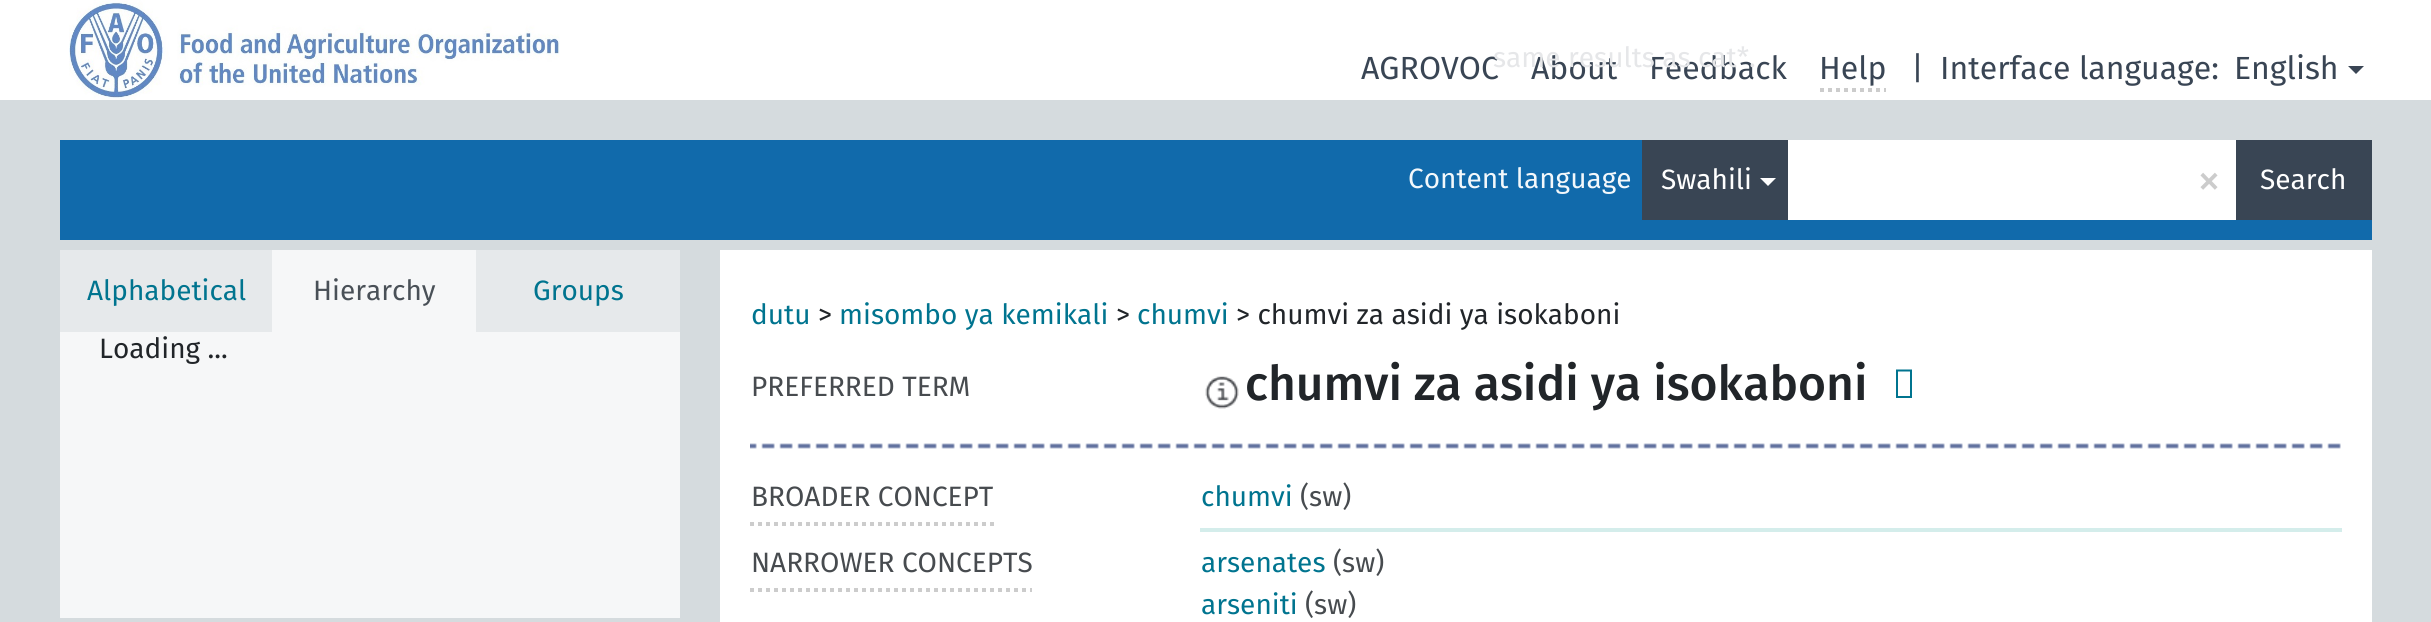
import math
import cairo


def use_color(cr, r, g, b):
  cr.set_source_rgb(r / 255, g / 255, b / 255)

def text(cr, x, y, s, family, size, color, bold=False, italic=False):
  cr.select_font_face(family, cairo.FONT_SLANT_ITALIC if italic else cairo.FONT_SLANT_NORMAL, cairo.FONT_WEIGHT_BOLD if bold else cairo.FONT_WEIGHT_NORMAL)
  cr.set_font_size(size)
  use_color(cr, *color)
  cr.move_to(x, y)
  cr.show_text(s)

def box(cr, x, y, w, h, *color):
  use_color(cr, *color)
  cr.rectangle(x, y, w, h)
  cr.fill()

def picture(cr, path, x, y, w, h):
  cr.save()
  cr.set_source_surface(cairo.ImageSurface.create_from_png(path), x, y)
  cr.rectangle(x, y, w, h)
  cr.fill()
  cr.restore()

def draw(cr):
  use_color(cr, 213, 219, 222)
  cr.paint()
  box(cr, 0, 0, 2431, 100, 255, 255, 255)
  picture(cr, "img_01.png", 69, 0, 491, 100)
  cr.new_path()
  cr.move_to(1820, 90)
  cr.line_to(1886, 90)
  use_color(cr, 204, 204, 204)
  cr.set_line_width(4)
  cr.set_dash([4, 4])
  cr.stroke()
  use_color(cr, 57, 69, 84)
  cr.new_path()
  cr.move_to(2348, 66)
  cr.line_to(2364, 66)
  cr.line_to(2356, 74)
  cr.close_path()
  cr.fill()
  box(cr, 60, 140, 2312, 100, 17, 106, 171)
  box(cr, 1642, 140, 146, 80, 57, 69, 84)
  use_color(cr, 255, 255, 255)
  cr.new_path()
  cr.move_to(1760, 178)
  cr.line_to(1776, 178)
  cr.line_to(1768, 186)
  cr.close_path()
  cr.fill()
  box(cr, 1788, 140, 448, 80, 255, 255, 255)
  box(cr, 2236, 140, 136, 80, 57, 69, 84)
  box(cr, 60, 250, 212, 82, 230, 233, 235)
  box(cr, 272, 250, 204, 82, 246, 247, 248)
  box(cr, 476, 250, 204, 82, 230, 233, 235)
  box(cr, 60, 332, 620, 286, 246, 247, 248)
  box(cr, 720, 250, 1652, 372, 255, 255, 255)
  picture(cr, "img_02.png", 1205, 376, 34, 33)
  use_color(cr, 0, 116, 143)
  cr.new_path()
  cr.move_to(1896, 398)
  cr.line_to(1896, 369.5)
  cr.line_to(1912, 369.5)
  cr.line_to(1912, 398)
  cr.close_path()
  cr.move_to(1898, 396)
  cr.line_to(1910, 396)
  cr.line_to(1910, 371.5)
  cr.line_to(1898, 371.5)
  cr.close_path()
  cr.fill()
  picture(cr, "img_03.png", 750, 443, 1591, 6)
  cr.new_path()
  cr.move_to(750, 524)
  cr.line_to(994, 524)
  use_color(cr, 204, 204, 204)
  cr.stroke()
  box(cr, 1200, 528, 1142, 4, 212, 237, 235)
  cr.new_path()
  cr.move_to(750, 590)
  cr.line_to(1032, 590)
  use_color(cr, 204, 204, 204)
  cr.stroke()
  text(cr, 1819, 79, "Help", "Fira Sans", 32, (57, 69, 84))
  text(cr, 1361, 79, "AGROVOC", "Fira Sans", 32, (57, 69, 84))
  text(cr, 1531, 79, "About", "Fira Sans", 32, (57, 69, 84))
  text(cr, 1649, 79, "Feedback", "Fira Sans", 32, (57, 69, 84))
  text(cr, 1493, 67, "same results as cat*.", "Fira Sans", 28, (230, 231, 233))
  text(cr, 1911, 79, "|", "Fira Sans", 32, (57, 69, 84))
  text(cr, 1940, 79, "Interface language:", "Fira Sans", 32, (57, 69, 84))
  text(cr, 2234, 79, "English", "Fira Sans", 32, (57, 69, 84))
  text(cr, 1408, 188, "Content language", "Fira Sans", 28, (243, 248, 251))
  text(cr, 1661, 189, "Swahili", "Fira Sans", 28, (255, 255, 255))
  text(cr, 2197, 196, "×", "Fira Sans", 48, (204, 204, 204))
  text(cr, 2260, 189, "Search", "Fira Sans", 28, (255, 255, 255))
  text(cr, 87, 300, "Alphabetical", "Fira Sans", 28, (0, 116, 143))
  text(cr, 313, 300, "Hierarchy", "Fira Sans", 28, (73, 80, 87))
  text(cr, 533, 300, "Groups", "Fira Sans", 28, (0, 116, 143))
  text(cr, 99, 358, "Loading ...", "Fira Sans", 28, (33, 37, 41))
  text(cr, 751, 324, "dutu", "Fira Sans", 28, (0, 116, 143))
  text(cr, 818, 324, ">", "Fira Sans", 28, (33, 37, 41))
  text(cr, 839, 324, "misombo ya kemikali", "Fira Sans", 28, (0, 116, 143))
  text(cr, 1116, 324, ">", "Fira Sans", 28, (33, 37, 41))
  text(cr, 1137, 324, "chumvi", "Fira Sans", 28, (0, 116, 143))
  text(cr, 1236, 324, "> chumvi za asidi ya isokaboni", "Fira Sans", 28, (33, 37, 41))
  text(cr, 751, 396, "PREFERRED TERM", "Fira Sans", 28, (71, 75, 79))
  text(cr, 1245, 400, "chumvi za asidi ya isokaboni", "Fira Sans Medium", 48, (33, 37, 41))
  text(cr, 751, 506, "BROADER CONCEPT", "Fira Sans", 28, (71, 75, 79))
  text(cr, 1201, 506, "chumvi", "Fira Sans", 28, (0, 116, 143))
  text(cr, 1300, 506, "(sw)", "Fira Sans", 28, (71, 75, 79))
  text(cr, 751, 572, "NARROWER CONCEPTS", "Fira Sans", 28, (71, 75, 79))
  text(cr, 1201, 572, "arsenates", "Fira Sans", 28, (0, 116, 143))
  text(cr, 1333, 572, "(sw)", "Fira Sans", 28, (71, 75, 79))
  text(cr, 1201, 614, "arseniti", "Fira Sans", 28, (0, 116, 143))
  text(cr, 1305, 614, "(sw)", "Fira Sans", 28, (71, 75, 79))


surface = cairo.ImageSurface(cairo.FORMAT_RGB24, 2431, 622)
cr = cairo.Context(surface)
options = cairo.FontOptions()
options.set_hint_metrics(cairo.HINT_METRICS_OFF)
options.set_hint_style(cairo.HINT_STYLE_NONE)
cr.set_font_options(options)
cr.set_miter_limit(4)
draw(cr)
surface.write_to_png("out.png")
